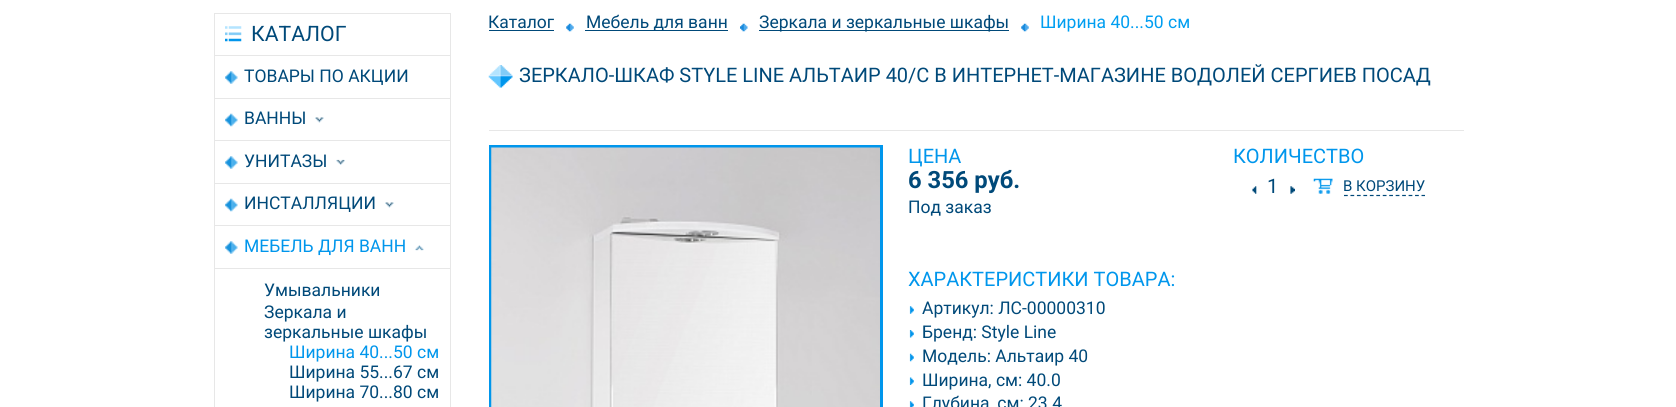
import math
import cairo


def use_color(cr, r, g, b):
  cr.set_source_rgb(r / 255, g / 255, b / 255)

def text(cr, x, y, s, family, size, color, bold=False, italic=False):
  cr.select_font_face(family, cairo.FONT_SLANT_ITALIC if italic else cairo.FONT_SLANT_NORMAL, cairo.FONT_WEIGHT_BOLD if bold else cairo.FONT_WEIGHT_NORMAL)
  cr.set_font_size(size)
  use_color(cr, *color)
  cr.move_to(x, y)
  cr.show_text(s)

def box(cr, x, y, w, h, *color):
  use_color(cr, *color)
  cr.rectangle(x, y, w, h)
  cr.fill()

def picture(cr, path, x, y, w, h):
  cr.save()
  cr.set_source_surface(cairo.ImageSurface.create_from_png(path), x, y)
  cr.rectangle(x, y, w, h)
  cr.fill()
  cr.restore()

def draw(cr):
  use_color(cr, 255, 255, 255)
  cr.paint()
  cr.rectangle(214.5, 13.5, 236, 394)
  use_color(cr, 231, 231, 231)
  cr.set_line_width(1)
  cr.stroke()
  picture(cr, "img_01.png", 225, 26, 17, 16)
  picture(cr, "img_02.png", 225, 71, 13, 13)
  box(cr, 215, 55, 235, 1, 231, 231, 231)
  box(cr, 215, 98, 235, 1, 231, 231, 231)
  picture(cr, "img_03.png", 225, 113, 13, 14)
  box(cr, 215, 140, 235, 1, 231, 231, 231)
  picture(cr, "img_04.png", 315, 117, 9, 6)
  picture(cr, "img_02.png", 225, 156, 13, 13)
  box(cr, 215, 183, 235, 1, 231, 231, 231)
  picture(cr, "img_05.png", 336, 159, 9, 6)
  picture(cr, "img_03.png", 225, 198, 13, 14)
  box(cr, 215, 225, 235, 1, 231, 231, 231)
  picture(cr, "img_04.png", 385, 202, 9, 6)
  picture(cr, "img_02.png", 225, 241, 13, 13)
  picture(cr, "img_06.png", 415, 245, 9, 6)
  box(cr, 215, 268, 235, 1, 231, 231, 231)
  box(cr, 489, 30, 65, 1, 0, 73, 121)
  picture(cr, "img_07.png", 566, 23, 8, 9)
  box(cr, 585, 30, 143, 1, 0, 73, 121)
  picture(cr, "img_08.png", 740, 23, 8, 9)
  box(cr, 759, 30, 250, 1, 0, 73, 121)
  picture(cr, "img_07.png", 1021, 23, 8, 9)
  picture(cr, "img_09.png", 488, 65, 25, 23)
  box(cr, 489, 130, 975, 1, 231, 231, 231)
  cr.rectangle(490.5, 146.5, 391, 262)
  use_color(cr, 0, 150, 236)
  cr.set_line_width(3)
  cr.stroke()
  picture(cr, "img_10.png", 491, 147, 389, 260)
  picture(cr, "img_11.png", 1252, 186, 5, 8)
  picture(cr, "img_12.png", 1290, 186, 5, 8)
  picture(cr, "img_13.png", 1312, 178, 21, 16)
  cr.new_path()
  cr.move_to(1344, 195.5)
  cr.line_to(1425, 195.5)
  use_color(cr, 0, 73, 121)
  cr.set_line_width(1.2)
  cr.set_dash([3.75, 2.71])
  cr.stroke()
  picture(cr, "img_14.png", 909, 306, 5, 8)
  picture(cr, "img_15.png", 909, 330, 5, 8)
  picture(cr, "img_16.png", 909, 353, 5, 9)
  picture(cr, "img_17.png", 909, 377, 5, 8)
  picture(cr, "img_18.png", 909, 401, 5, 6)
  text(cr, 251, 41, "КАТАЛОГ", "Roboto", 21.25, (0, 73, 121))
  text(cr, 244, 82, "ТОВАРЫ ПО АКЦИИ", "Roboto", 17.5, (0, 73, 121))
  text(cr, 244, 124, "ВАННЫ", "Roboto", 17.5, (0, 73, 121))
  text(cr, 244, 167, "УНИТАЗЫ", "Roboto", 17.5, (0, 73, 121))
  text(cr, 244, 209, "ИНСТАЛЛЯЦИИ", "Roboto", 17.5, (0, 73, 121))
  text(cr, 244, 252, "МЕБЕЛЬ ДЛЯ ВАНН", "Roboto", 17.5, (0, 150, 236))
  text(cr, 264, 296, "Умывальники", "Roboto", 17.5, (0, 73, 121))
  text(cr, 264, 318, "Зеркала и", "Roboto", 17.5, (0, 73, 121))
  text(cr, 264, 338, "зеркальные шкафы", "Roboto", 17.5, (0, 73, 121))
  text(cr, 289, 358, "Ширина 40...50 см", "Roboto", 17.5, (0, 150, 236))
  text(cr, 289, 378, "Ширина 55...67 см", "Roboto", 17.5, (0, 73, 121))
  text(cr, 289, 398, "Ширина 70...80 см", "Roboto", 17.5, (0, 73, 121))
  text(cr, 488, 28, "Каталог", "Roboto", 17.5, (0, 73, 121))
  text(cr, 586, 28, "Мебель для ванн", "Roboto", 17.5, (0, 73, 121))
  text(cr, 759, 28, "Зеркала и зеркальные шкафы", "Roboto", 17.5, (0, 73, 121))
  text(cr, 1040, 28, "Ширина 40...50 см", "Roboto", 17.5, (0, 158, 241))
  text(cr, 519, 82, "ЗЕРКАЛО-ШКАФ STYLE LINE АЛЬТАИР 40/С В ИНТЕРНЕТ-МАГАЗИНЕ ВОДОЛЕЙ СЕРГИЕВ ПОСАД", "Roboto", 20, (0, 73, 121))
  text(cr, 908, 163, "ЦЕНА", "Roboto", 20, (0, 150, 236))
  text(cr, 908, 188, "6 356 руб.", "Roboto", 23.75, (0, 73, 121), bold=True)
  text(cr, 908, 213, "Под заказ", "Roboto", 17.5, (0, 73, 121))
  text(cr, 1233, 163, "КОЛИЧЕСТВО", "Roboto", 20, (0, 150, 236))
  text(cr, 1267, 193, "1", "Roboto", 20, (0, 73, 121))
  text(cr, 1343, 191, "В КОРЗИНУ", "Roboto", 15, (0, 73, 121))
  text(cr, 908, 286, "ХАРАКТЕРИСТИКИ ТОВАРА:", "Roboto", 20, (0, 150, 236))
  text(cr, 922, 314, "Артикул: ЛС-00000310", "Roboto", 17.5, (0, 73, 121))
  text(cr, 922, 338, "Бренд: Style Line", "Roboto", 17.5, (0, 73, 121))
  text(cr, 922, 362, "Модель: Альтаир 40", "Roboto", 17.5, (0, 73, 121))
  text(cr, 922, 386, "Ширина, см: 40.0", "Roboto", 17.5, (0, 73, 121))
  text(cr, 922, 409, "Глубина, см: 23.4", "Roboto", 17.5, (0, 73, 121))


surface = cairo.ImageSurface(cairo.FORMAT_RGB24, 1676, 407)
cr = cairo.Context(surface)
options = cairo.FontOptions()
options.set_hint_metrics(cairo.HINT_METRICS_OFF)
options.set_hint_style(cairo.HINT_STYLE_NONE)
cr.set_font_options(options)
cr.set_miter_limit(4)
draw(cr)
surface.write_to_png("out.png")
